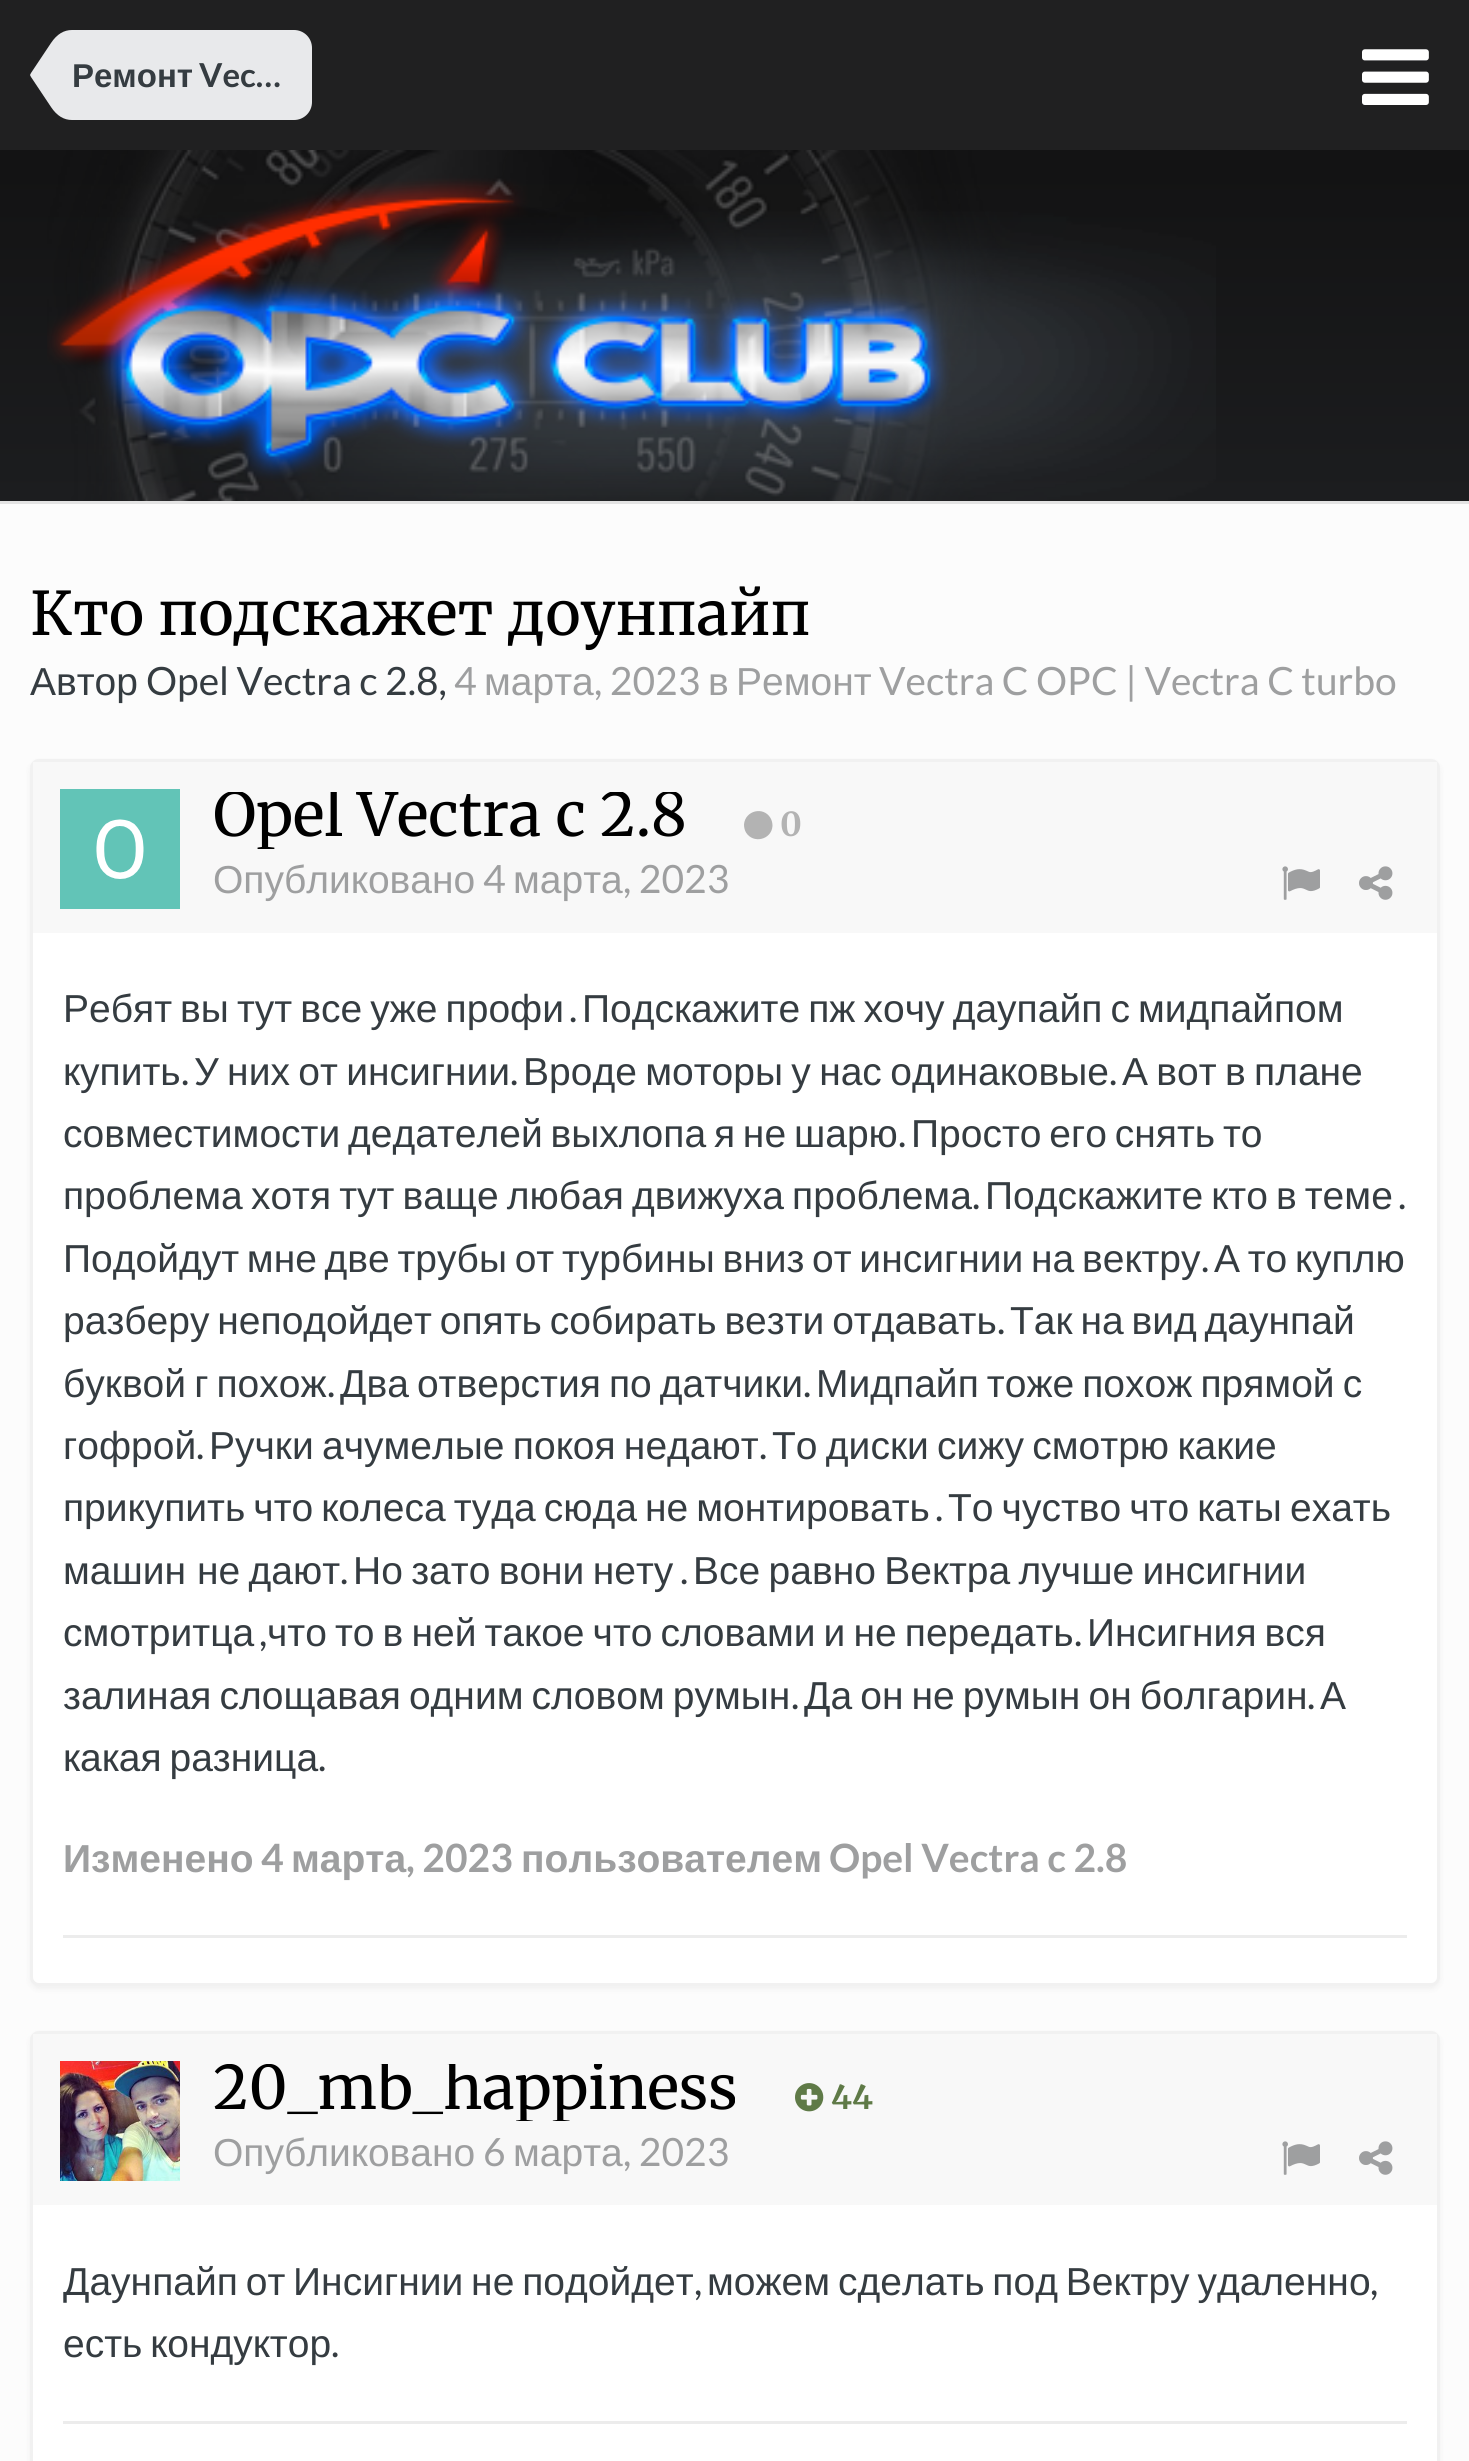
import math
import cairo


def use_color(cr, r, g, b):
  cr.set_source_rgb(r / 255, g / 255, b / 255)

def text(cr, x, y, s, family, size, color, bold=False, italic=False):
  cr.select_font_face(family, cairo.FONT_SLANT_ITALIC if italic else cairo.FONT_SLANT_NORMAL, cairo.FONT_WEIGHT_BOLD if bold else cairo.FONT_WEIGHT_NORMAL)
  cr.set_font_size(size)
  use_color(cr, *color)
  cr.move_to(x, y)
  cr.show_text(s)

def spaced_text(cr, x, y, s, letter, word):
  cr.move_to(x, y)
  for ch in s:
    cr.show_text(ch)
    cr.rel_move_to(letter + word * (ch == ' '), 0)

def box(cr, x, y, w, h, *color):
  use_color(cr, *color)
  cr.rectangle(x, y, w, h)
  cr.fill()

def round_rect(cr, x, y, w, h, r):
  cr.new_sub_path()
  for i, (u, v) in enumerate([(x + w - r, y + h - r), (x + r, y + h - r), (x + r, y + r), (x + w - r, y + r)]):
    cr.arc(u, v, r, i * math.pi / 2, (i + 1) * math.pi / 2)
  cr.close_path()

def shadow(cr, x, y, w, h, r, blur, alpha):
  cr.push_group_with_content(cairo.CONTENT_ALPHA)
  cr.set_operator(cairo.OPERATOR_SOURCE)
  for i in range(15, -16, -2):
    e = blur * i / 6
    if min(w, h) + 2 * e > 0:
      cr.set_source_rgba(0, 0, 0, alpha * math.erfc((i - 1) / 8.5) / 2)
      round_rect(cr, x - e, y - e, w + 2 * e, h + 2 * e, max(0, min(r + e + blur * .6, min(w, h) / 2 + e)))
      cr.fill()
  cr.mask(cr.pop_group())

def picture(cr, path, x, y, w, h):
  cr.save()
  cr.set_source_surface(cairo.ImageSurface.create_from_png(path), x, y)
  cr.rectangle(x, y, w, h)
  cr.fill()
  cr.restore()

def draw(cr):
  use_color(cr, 252, 252, 252)
  cr.paint()
  box(cr, 0, 501, 1469, 3, 227, 227, 227)
  box(cr, 0, 0, 1469, 150, 32, 32, 33)
  use_color(cr, 232, 233, 235)
  cr.new_path()
  cr.move_to(72, 30)
  cr.line_to(294, 30)
  cr.curve_to(304, 30, 312, 38, 312, 48)
  cr.line_to(312, 102)
  cr.curve_to(312, 112, 304, 120, 294, 120)
  cr.line_to(72, 120)
  cr.close_path()
  cr.fill()
  cr.new_path()
  cr.move_to(72, 75)
  cr.line_to(72, 120)
  cr.curve_to(64, 120, 57, 116, 51, 107)
  cr.line_to(31, 77)
  cr.line_to(30, 75)
  cr.close_path()
  cr.fill()
  cr.new_path()
  cr.move_to(72, 75)
  cr.line_to(30, 75)
  cr.line_to(31, 73)
  cr.line_to(51, 43)
  cr.curve_to(57, 34, 64, 30, 72, 30)
  cr.close_path()
  cr.fill()
  picture(cr, "img_01.png", 1362, 49, 67, 56)
  gradient = cairo.LinearGradient(735, 150, 735, 501)
  gradient.add_color_stop_rgba(0.06, 0.075, 0.075, 0.078, 1)
  gradient.add_color_stop_rgba(1, 0.11, 0.114, 0.122, 1)
  cr.set_source(gradient)
  cr.rectangle(0, 150, 1469, 351)
  cr.fill()
  picture(cr, "img_02.png", 47, 150, 1169, 351)
  use_color(cr, 0, 0, 0)
  shadow(cr, 30, 762, 1410, 1227, 9, 3, 0.05)
  use_color(cr, 255, 255, 255)
  round_rect(cr, 31.5, 760.5, 1407, 1224, 7.5)
  cr.fill_preserve()
  use_color(cr, 241, 241, 241)
  cr.set_line_width(3)
  cr.stroke()
  box(cr, 33, 762, 1404, 171, 248, 248, 248)
  picture(cr, "img_03.png", 60, 789, 120, 120)
  use_color(cr, 179, 179, 179)
  cr.new_path()
  cr.move_to(770.5, 818)
  cr.curve_to(772, 820.5, 772.5, 823.5, 772.5, 826)
  cr.curve_to(771.5, 840, 753, 844, 746, 832.5)
  cr.curve_to(744.5, 830, 744, 827, 744, 824.5)
  cr.curve_to(745, 810.5, 763.5, 806, 770.5, 818)
  cr.close_path()
  cr.fill()
  picture(cr, "img_04.png", 1282, 866, 38, 34)
  picture(cr, "img_05.png", 1359, 866, 34, 34)
  box(cr, 63, 1935, 1344, 3, 236, 236, 236)
  use_color(cr, 0, 0, 0)
  shadow(cr, 30, 2034, 1410, 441, 9, 3, 0.05)
  use_color(cr, 255, 255, 255)
  round_rect(cr, 31.5, 2032.5, 1407, 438, 7.5)
  cr.fill_preserve()
  use_color(cr, 241, 241, 241)
  cr.stroke()
  box(cr, 33, 2034, 1404, 171, 248, 248, 248)
  picture(cr, "img_06.png", 60, 2061, 120, 120)
  picture(cr, "img_07.png", 795, 2083, 29, 29)
  picture(cr, "img_04.png", 1282, 2141, 38, 34)
  picture(cr, "img_05.png", 1359, 2141, 34, 34)
  box(cr, 63, 2421, 1344, 3, 236, 236, 236)
  text(cr, 72, 87, "Ремонт", "Liberation Sans", 33, (53, 60, 65), bold=True)
  text(cr, 199, 87, "Vec…", "Lato", 33, (53, 60, 65), bold=True)
  text(cr, 30, 635, "Кто подскажет доунпайп", "Merriweather", 60, (0, 0, 0))
  text(cr, 30, 695, "Автор", "Liberation Sans", 39, (53, 60, 65))
  text(cr, 146, 695, "Opel Vectra c 2.8,", "Lato", 39, (53, 60, 65))
  text(cr, 454, 695, "4", "Lato", 39, (158, 159, 160))
  text(cr, 484, 695, "марта", "Liberation Sans", 39, (158, 159, 160))
  text(cr, 594, 695, ", 2023", "Lato", 39, (158, 159, 160))
  text(cr, 708, 695, "в", "Liberation Sans", 39, (158, 159, 160))
  text(cr, 736, 695, "Ремонт", "Liberation Sans", 39, (158, 159, 160))
  text(cr, 879, 695, "Vectra C OPC | Vectra C turbo", "Lato", 39, (158, 159, 160))
  cr.save()
  cr.rectangle(213, 792, 1074, 57)
  cr.clip()
  text(cr, 213, 836, "Opel Vectra c 2.8", "Merriweather", 60, (0, 0, 0))
  cr.restore()
  text(cr, 780, 836, "0", "Merriweather", 33, (179, 179, 179), bold=True)
  text(cr, 213, 893, "Опубликовано", "Liberation Sans", 39, (158, 159, 160))
  text(cr, 483, 893, "4", "Lato", 39, (158, 159, 160))
  text(cr, 513, 893, "марта", "Liberation Sans", 39, (158, 159, 160))
  text(cr, 623, 893, ", 2023", "Lato", 39, (158, 159, 160))
  cr.select_font_face("Liberation Sans")
  use_color(cr, 53, 60, 65)
  spaced_text(cr, 63, 1022, "Ребят вы тут все уже профи", 0, -2.75)
  text(cr, 569, 1022, ".", "Lato", 39, (53, 60, 65))
  cr.select_font_face("Liberation Sans")
  spaced_text(cr, 582, 1022, "Подскажите пж хочу даупайп с мидпайпом", 0, -2.75)
  text(cr, 63, 1085, "купить", "Liberation Sans", 39, (53, 60, 65))
  text(cr, 181, 1085, ".", "Lato", 39, (53, 60, 65))
  cr.select_font_face("Liberation Sans")
  spaced_text(cr, 194, 1085, "У них от инсигнии", 0, -2.5)
  text(cr, 510, 1085, ".", "Lato", 39, (53, 60, 65))
  cr.select_font_face("Liberation Sans")
  spaced_text(cr, 523, 1085, "Вроде моторы у нас одинаковые", 0, -2.5)
  text(cr, 1109, 1085, ".", "Lato", 39, (53, 60, 65))
  cr.select_font_face("Liberation Sans")
  spaced_text(cr, 1122, 1085, "А вот в плане", 0, -2.5)
  spaced_text(cr, 63, 1147, "совместимости дедателей выхлопа я не шарю", 0, -3)
  text(cr, 898, 1147, ".", "Lato", 39, (53, 60, 65))
  cr.select_font_face("Liberation Sans")
  spaced_text(cr, 911, 1147, "Просто его снять то", 0, -3)
  spaced_text(cr, 63, 1209, "проблема хотя тут ваще любая движуха проблема", 0, -2.75)
  text(cr, 972, 1209, ".", "Lato", 39, (53, 60, 65))
  cr.select_font_face("Liberation Sans")
  spaced_text(cr, 985, 1209, "Подскажите кто в теме", 0, -2.75)
  text(cr, 1398, 1209, ".", "Lato", 39, (53, 60, 65))
  cr.select_font_face("Liberation Sans")
  spaced_text(cr, 63, 1272, "Подойдут мне две трубы от турбины вниз от инсигнии на вектру", 0, -3.1)
  text(cr, 1201, 1272, ".", "Lato", 39, (53, 60, 65))
  cr.select_font_face("Liberation Sans")
  spaced_text(cr, 1214, 1272, "А то куплю", 0, -3.1)
  spaced_text(cr, 63, 1334, "разберу неподойдет опять собирать везти отдавать", 0, -3)
  text(cr, 997, 1334, ".", "Lato", 39, (53, 60, 65))
  cr.select_font_face("Liberation Sans")
  spaced_text(cr, 1010, 1334, "Так на вид даунпай", 0, -3)
  spaced_text(cr, 63, 1397, "буквой г похож", 0, -2.75)
  text(cr, 327, 1397, ".", "Lato", 39, (53, 60, 65))
  cr.select_font_face("Liberation Sans")
  spaced_text(cr, 340, 1397, "Два отверстия по датчики", 0, -2.75)
  text(cr, 803, 1397, ".", "Lato", 39, (53, 60, 65))
  cr.select_font_face("Liberation Sans")
  spaced_text(cr, 816, 1397, "Мидпайп тоже похож прямой с", 0, -2.75)
  text(cr, 63, 1459, "гофрой", "Liberation Sans", 39, (53, 60, 65))
  text(cr, 196, 1459, ".", "Lato", 39, (53, 60, 65))
  cr.select_font_face("Liberation Sans")
  spaced_text(cr, 209, 1459, "Ручки ачумелые покоя недают", 0, -2.5)
  text(cr, 759, 1459, ".", "Lato", 39, (53, 60, 65))
  cr.select_font_face("Liberation Sans")
  spaced_text(cr, 772, 1459, "То диски сижу смотрю какие", 0, -2.5)
  spaced_text(cr, 63, 1521, "прикупить что колеса туда сюда не монтировать", 0, -2.75)
  text(cr, 935, 1521, ".", "Lato", 39, (53, 60, 65))
  cr.select_font_face("Liberation Sans")
  spaced_text(cr, 948, 1521, "То чуство что каты ехать", 0, -2.75)
  text(cr, 63, 1584, "машин", "Liberation Sans", 39, (53, 60, 65))
  spaced_text(cr, 197, 1584, "не дают", 0, -2.5)
  text(cr, 340, 1584, ".", "Lato", 39, (53, 60, 65))
  cr.select_font_face("Liberation Sans")
  spaced_text(cr, 353, 1584, "Но зато вони нету", 0, -2.5)
  text(cr, 680, 1584, ".", "Lato", 39, (53, 60, 65))
  cr.select_font_face("Liberation Sans")
  spaced_text(cr, 693, 1584, "Все равно Вектра лучше инсигнии", 0, -2.5)
  text(cr, 63, 1646, "смотритца", "Liberation Sans", 39, (53, 60, 65))
  text(cr, 259, 1646, ",", "Lato", 39, (53, 60, 65))
  cr.select_font_face("Liberation Sans")
  spaced_text(cr, 267, 1646, "что то в ней такое что словами и не передать", 0, -2.75)
  text(cr, 1074, 1646, ".", "Lato", 39, (53, 60, 65))
  cr.select_font_face("Liberation Sans")
  spaced_text(cr, 1087, 1646, "Инсигния вся", 0, -2.75)
  spaced_text(cr, 63, 1709, "залиная слощавая одним словом румын", 0, -2.75)
  text(cr, 791, 1709, ".", "Lato", 39, (53, 60, 65))
  cr.select_font_face("Liberation Sans")
  spaced_text(cr, 804, 1709, "Да он не румын он болгарин", 0, -2.75)
  text(cr, 1307, 1709, ".", "Lato", 39, (53, 60, 65))
  text(cr, 1320, 1709, "А", "Liberation Sans", 39, (53, 60, 65))
  spaced_text(cr, 63, 1771, "какая разница", 0, -3)
  text(cr, 318, 1771, ".", "Lato", 39, (53, 60, 65))
  text(cr, 63, 1872, "Изменено", "Liberation Sans", 39, (158, 159, 160), bold=True)
  text(cr, 261, 1872, "4", "Lato", 39, (158, 159, 160), bold=True)
  text(cr, 291, 1872, "марта", "Liberation Sans", 39, (158, 159, 160), bold=True)
  text(cr, 406, 1872, ", 2023", "Lato", 39, (158, 159, 160), bold=True)
  text(cr, 521, 1872, "пользователем", "Liberation Sans", 39, (158, 159, 160), bold=True)
  text(cr, 829, 1872, "Opel Vectra c 2.8", "Lato", 39, (158, 159, 160), bold=True)
  cr.save()
  cr.rectangle(213, 2064, 1074, 57)
  cr.clip()
  text(cr, 213, 2109, "20_mb_happiness", "Merriweather", 60, (0, 0, 0))
  cr.restore()
  text(cr, 831, 2109, "44", "Merriweather", 33, (95, 122, 71), bold=True)
  text(cr, 213, 2166, "Опубликовано", "Liberation Sans", 39, (158, 159, 160))
  text(cr, 483, 2166, "6", "Lato", 39, (158, 159, 160))
  text(cr, 513, 2166, "марта", "Liberation Sans", 39, (158, 159, 160))
  text(cr, 623, 2166, ", 2023", "Lato", 39, (158, 159, 160))
  cr.select_font_face("Liberation Sans")
  use_color(cr, 53, 60, 65)
  spaced_text(cr, 63, 2295, "Даунпайп от Инсигнии не подойдет", 0, -3)
  text(cr, 694, 2295, ",", "Lato", 39, (53, 60, 65))
  cr.select_font_face("Liberation Sans")
  spaced_text(cr, 707, 2295, "можем сделать под Вектру удаленно", 0, -3)
  text(cr, 1370, 2295, ",", "Lato", 39, (53, 60, 65))
  cr.select_font_face("Liberation Sans")
  spaced_text(cr, 63, 2357, "есть кондуктор", 0, -3)
  text(cr, 331, 2357, ".", "Lato", 39, (53, 60, 65))


surface = cairo.ImageSurface(cairo.FORMAT_RGB24, 1469, 2461)
cr = cairo.Context(surface)
options = cairo.FontOptions()
options.set_hint_metrics(cairo.HINT_METRICS_OFF)
options.set_hint_style(cairo.HINT_STYLE_NONE)
cr.set_font_options(options)
cr.set_miter_limit(4)
draw(cr)
surface.write_to_png("out.png")
